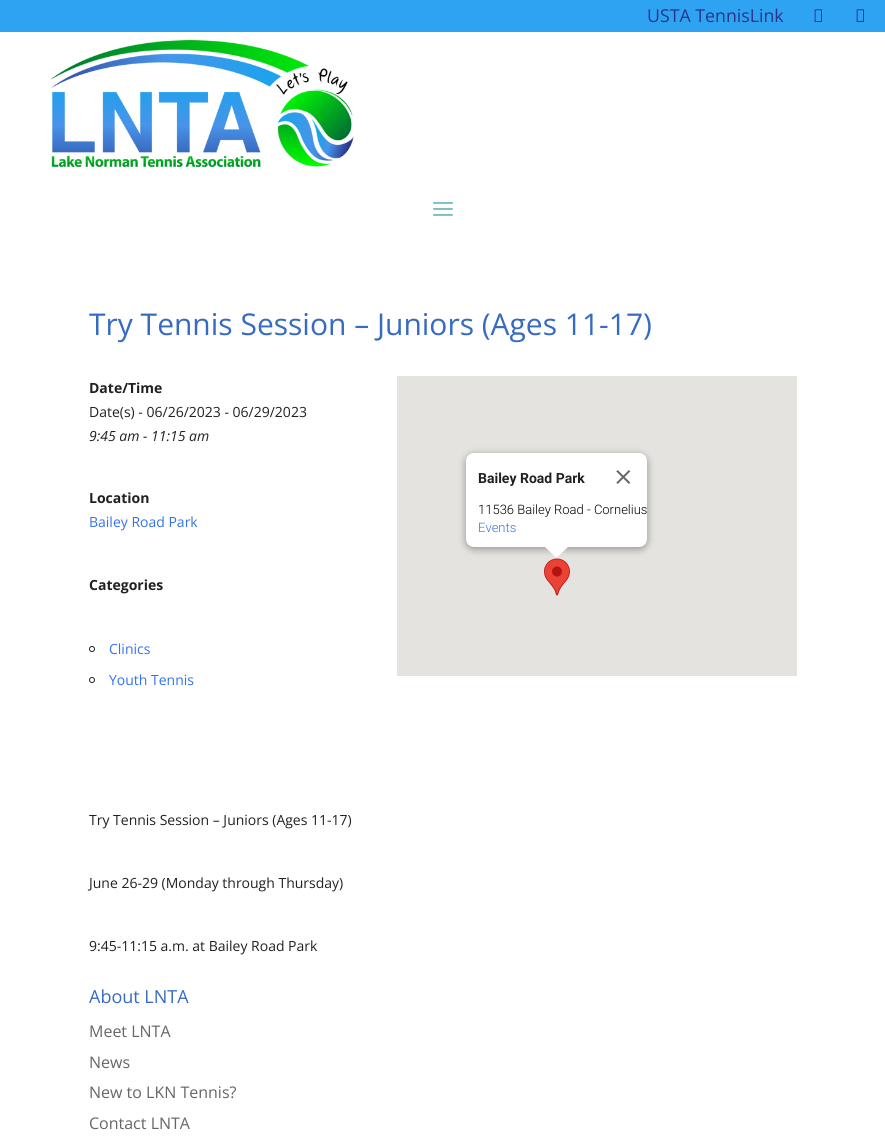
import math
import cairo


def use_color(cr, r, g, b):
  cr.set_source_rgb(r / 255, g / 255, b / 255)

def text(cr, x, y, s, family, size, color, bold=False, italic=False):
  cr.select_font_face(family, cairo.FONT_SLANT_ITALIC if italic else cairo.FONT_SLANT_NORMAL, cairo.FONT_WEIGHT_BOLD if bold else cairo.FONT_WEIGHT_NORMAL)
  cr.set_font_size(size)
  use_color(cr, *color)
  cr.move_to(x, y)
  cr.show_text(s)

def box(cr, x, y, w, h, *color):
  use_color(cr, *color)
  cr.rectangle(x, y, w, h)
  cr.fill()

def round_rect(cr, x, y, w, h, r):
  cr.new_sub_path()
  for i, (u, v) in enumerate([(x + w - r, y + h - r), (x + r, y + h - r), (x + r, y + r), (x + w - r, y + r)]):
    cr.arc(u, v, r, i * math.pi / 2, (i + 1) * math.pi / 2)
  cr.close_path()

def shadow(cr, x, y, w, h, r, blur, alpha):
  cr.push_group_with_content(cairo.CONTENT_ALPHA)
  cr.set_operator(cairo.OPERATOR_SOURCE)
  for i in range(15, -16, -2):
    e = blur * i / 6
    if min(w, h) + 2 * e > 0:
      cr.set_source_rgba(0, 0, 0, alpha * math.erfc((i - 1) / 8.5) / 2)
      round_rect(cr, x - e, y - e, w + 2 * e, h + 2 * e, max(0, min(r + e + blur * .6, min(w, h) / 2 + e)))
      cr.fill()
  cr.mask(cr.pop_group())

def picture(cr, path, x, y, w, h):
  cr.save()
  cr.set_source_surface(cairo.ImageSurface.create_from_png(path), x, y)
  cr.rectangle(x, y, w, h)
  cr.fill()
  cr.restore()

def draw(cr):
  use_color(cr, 255, 255, 255)
  cr.paint()
  box(cr, 0, 0, 885, 32, 46, 163, 242)
  picture(cr, "img_01.png", 814, 9, 8, 13)
  picture(cr, "img_01.png", 856, 9, 8, 13)
  picture(cr, "img_02.png", 50, 40, 304, 127)
  picture(cr, "img_03.png", 433, 201, 20, 15)
  box(cr, 397, 376, 400, 300, 229, 227, 223)
  picture(cr, "img_05.png", 544, 558, 26, 38)
  use_color(cr, 0, 0, 0)
  shadow(cr, 465, 454, 183, 96, 9, 3.5, 0.3)
  use_color(cr, 255, 255, 255)
  round_rect(cr, 466, 453, 181, 94, 8)
  cr.fill()
  picture(cr, "img_04.png", 616, 470, 15, 14)
  cr.new_path()
  cr.move_to(545, 546)
  cr.line_to(545, 547)
  cr.line_to(556.5, 558)
  cr.line_to(569, 546)
  cr.close_path()
  cr.fill()
  cr.arc(92, 649, 2.5, 0, 2 * math.pi)
  use_color(cr, 33, 33, 33)
  cr.set_line_width(1)
  cr.stroke()
  cr.arc(92, 680, 2.5, 0, 2 * math.pi)
  cr.stroke()
  text(cr, 647, 22, "USTA TennisLink", "Open Sans", 17.75, (40, 52, 138))
  text(cr, 89, 335, "Try Tennis Session – Juniors (Ages 11-17)", "Open Sans", 30, (55, 106, 195))
  text(cr, 89, 393, "Date/Time", "Open Sans", 14, (33, 33, 33), bold=True)
  text(cr, 89, 417, "Date(s) - 06/26/2023 - 06/29/2023", "Open Sans", 14, (33, 33, 33))
  text(cr, 89, 441, "9:45 am - 11:15 am", "Open Sans", 14, (33, 33, 33), italic=True)
  text(cr, 89, 503, "Location", "Open Sans", 14, (33, 33, 33), bold=True)
  text(cr, 89, 527, "Bailey Road Park", "Open Sans", 14, (51, 114, 240))
  text(cr, 478, 483, "Bailey Road Park", "Roboto", 14, (33, 33, 33), bold=True)
  text(cr, 478, 514, "11536 Bailey Road - Cornelius", "Roboto Light", 13, (0, 0, 0))
  text(cr, 478, 532, "Events", "Roboto Light", 13, (51, 114, 240))
  text(cr, 89, 590, "Categories", "Open Sans", 14, (33, 33, 33), bold=True)
  text(cr, 109, 654, "Clinics", "Open Sans", 14, (51, 114, 240))
  text(cr, 109, 685, "Youth Tennis", "Open Sans", 14, (51, 114, 240))
  text(cr, 89, 825, "Try Tennis Session – Juniors (Ages 11-17)", "Open Sans", 14, (33, 33, 33))
  text(cr, 89, 888, "June 26-29 (Monday through Thursday)", "Open Sans", 14, (33, 33, 33))
  text(cr, 89, 951, "9:45-11:15 a.m. at Bailey Road Park", "Open Sans", 14, (33, 33, 33))
  text(cr, 89, 1003, "About LNTA", "Open Sans", 18, (55, 106, 195))
  text(cr, 89, 1037, "Meet LNTA", "Open Sans", 16, (102, 102, 102))
  text(cr, 89, 1068, "News", "Open Sans", 16, (102, 102, 102))
  text(cr, 89, 1098, "New to LKN Tennis?", "Open Sans", 16, (102, 102, 102))
  text(cr, 89, 1129, "Contact LNTA", "Open Sans", 16, (102, 102, 102))


surface = cairo.ImageSurface(cairo.FORMAT_RGB24, 885, 1144)
cr = cairo.Context(surface)
options = cairo.FontOptions()
options.set_hint_metrics(cairo.HINT_METRICS_OFF)
options.set_hint_style(cairo.HINT_STYLE_NONE)
cr.set_font_options(options)
cr.set_miter_limit(4)
draw(cr)
surface.write_to_png("out.png")
